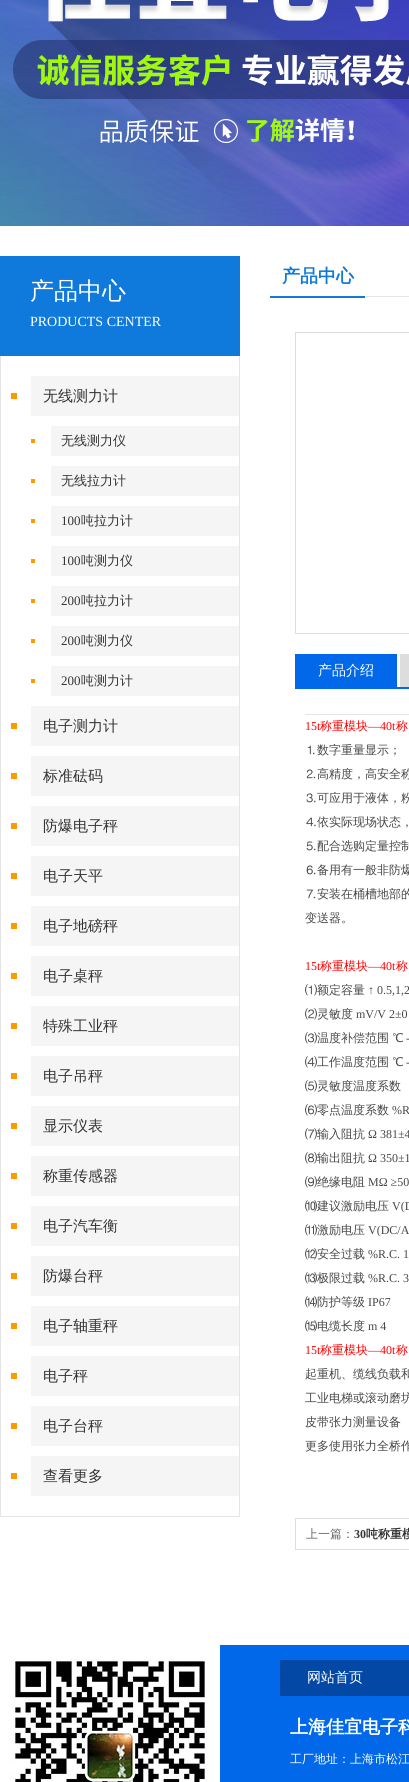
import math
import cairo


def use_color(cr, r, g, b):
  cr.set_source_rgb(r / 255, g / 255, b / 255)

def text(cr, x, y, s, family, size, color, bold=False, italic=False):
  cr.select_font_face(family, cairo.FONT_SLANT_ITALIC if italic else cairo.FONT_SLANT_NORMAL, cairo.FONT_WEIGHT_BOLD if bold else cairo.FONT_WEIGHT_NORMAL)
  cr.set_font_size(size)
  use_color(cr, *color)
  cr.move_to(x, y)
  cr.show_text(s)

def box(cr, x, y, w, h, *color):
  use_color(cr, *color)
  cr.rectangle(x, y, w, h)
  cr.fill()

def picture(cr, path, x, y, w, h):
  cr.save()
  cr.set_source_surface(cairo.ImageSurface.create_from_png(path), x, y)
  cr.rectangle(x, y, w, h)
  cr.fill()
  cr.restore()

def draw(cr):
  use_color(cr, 255, 255, 255)
  cr.paint()
  picture(cr, "img_01.png", 0, 0, 409, 226)
  box(cr, 0, 256, 240, 100, 15, 122, 219)
  box(cr, 239, 356, 1, 1161, 229, 229, 229)
  box(cr, 0, 1516, 240, 1, 229, 229, 229)
  box(cr, 0, 356, 1, 1161, 229, 229, 229)
  box(cr, 11, 393, 6, 6, 255, 153, 0)
  box(cr, 31, 376, 208, 40, 245, 245, 245)
  box(cr, 31, 439, 4, 4, 255, 153, 0)
  box(cr, 51, 426, 188, 30, 245, 245, 245)
  box(cr, 31, 479, 4, 4, 255, 153, 0)
  box(cr, 51, 466, 188, 30, 245, 245, 245)
  box(cr, 31, 519, 4, 4, 255, 153, 0)
  box(cr, 51, 506, 188, 30, 245, 245, 245)
  box(cr, 31, 559, 4, 4, 255, 153, 0)
  box(cr, 51, 546, 188, 30, 245, 245, 245)
  box(cr, 31, 599, 4, 4, 255, 153, 0)
  box(cr, 51, 586, 188, 30, 245, 245, 245)
  box(cr, 31, 639, 4, 4, 255, 153, 0)
  box(cr, 51, 626, 188, 30, 245, 245, 245)
  box(cr, 31, 679, 4, 4, 255, 153, 0)
  box(cr, 51, 666, 188, 30, 245, 245, 245)
  box(cr, 11, 723, 6, 6, 255, 153, 0)
  box(cr, 31, 706, 208, 40, 245, 245, 245)
  box(cr, 11, 773, 6, 6, 255, 153, 0)
  box(cr, 31, 756, 208, 40, 245, 245, 245)
  box(cr, 11, 823, 6, 6, 255, 153, 0)
  box(cr, 31, 806, 208, 40, 245, 245, 245)
  box(cr, 11, 873, 6, 6, 255, 153, 0)
  box(cr, 31, 856, 208, 40, 245, 245, 245)
  box(cr, 11, 923, 6, 6, 255, 153, 0)
  box(cr, 31, 906, 208, 40, 245, 245, 245)
  box(cr, 11, 973, 6, 6, 255, 153, 0)
  box(cr, 31, 956, 208, 40, 245, 245, 245)
  box(cr, 11, 1023, 6, 6, 255, 153, 0)
  box(cr, 31, 1006, 208, 40, 245, 245, 245)
  box(cr, 11, 1073, 6, 6, 255, 153, 0)
  box(cr, 31, 1056, 208, 40, 245, 245, 245)
  box(cr, 11, 1123, 6, 6, 255, 153, 0)
  box(cr, 31, 1106, 208, 40, 245, 245, 245)
  box(cr, 11, 1173, 6, 6, 255, 153, 0)
  box(cr, 31, 1156, 208, 40, 245, 245, 245)
  box(cr, 11, 1223, 6, 6, 255, 153, 0)
  box(cr, 31, 1206, 208, 40, 245, 245, 245)
  box(cr, 11, 1273, 6, 6, 255, 153, 0)
  box(cr, 31, 1256, 208, 40, 245, 245, 245)
  box(cr, 11, 1323, 6, 6, 255, 153, 0)
  box(cr, 31, 1306, 208, 40, 245, 245, 245)
  box(cr, 11, 1373, 6, 6, 255, 153, 0)
  box(cr, 31, 1356, 208, 40, 245, 245, 245)
  box(cr, 11, 1423, 6, 6, 255, 153, 0)
  box(cr, 31, 1406, 208, 40, 245, 245, 245)
  box(cr, 11, 1473, 6, 6, 255, 153, 0)
  box(cr, 31, 1456, 208, 40, 245, 245, 245)
  box(cr, 365, 296, 44, 1, 229, 229, 229)
  box(cr, 270, 296, 95, 2, 15, 122, 219)
  cr.rectangle(295.5, 332.5, 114, 301)
  use_color(cr, 221, 221, 221)
  cr.set_line_width(1)
  cr.stroke()
  box(cr, 295, 687, 114, 2, 1, 104, 233)
  box(cr, 295, 654, 102, 33, 1, 104, 233)
  box(cr, 400, 654, 9, 33, 221, 221, 221)
  box(cr, 305, 714, 104, 1, 230, 229, 229)
  cr.rectangle(295.5, 1518.5, 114, 31)
  use_color(cr, 221, 221, 221)
  cr.stroke()
  box(cr, 220, 1645, 189, 137, 1, 104, 233)
  picture(cr, "img_02.png", 0, 1645, 220, 137)
  box(cr, 280, 1660, 129, 36, 2, 72, 164)
  text(cr, 30, 299, "产品中心", "WenQuanYi Zen Hei Medium", 24, (255, 255, 255))
  text(cr, 30, 326, "PRODUCTS CENTER", "Liberation Serif", 14, (255, 255, 255))
  text(cr, 43, 401, "无线测力计", "WenQuanYi Zen Hei Medium", 15, (51, 51, 51))
  text(cr, 61, 445, "无线测力仪", "WenQuanYi Zen Hei Medium", 13, (51, 51, 51))
  text(cr, 61, 485, "无线拉力计", "WenQuanYi Zen Hei Medium", 13, (51, 51, 51))
  text(cr, 61, 525, "100", "Liberation Serif", 13, (51, 51, 51))
  text(cr, 81, 525, "吨拉力计", "WenQuanYi Zen Hei Medium", 13, (51, 51, 51))
  text(cr, 61, 565, "100", "Liberation Serif", 13, (51, 51, 51))
  text(cr, 81, 565, "吨测力仪", "WenQuanYi Zen Hei Medium", 13, (51, 51, 51))
  text(cr, 61, 605, "200", "Liberation Serif", 13, (51, 51, 51))
  text(cr, 81, 605, "吨拉力计", "WenQuanYi Zen Hei Medium", 13, (51, 51, 51))
  text(cr, 61, 645, "200", "Liberation Serif", 13, (51, 51, 51))
  text(cr, 81, 645, "吨测力仪", "WenQuanYi Zen Hei Medium", 13, (51, 51, 51))
  text(cr, 61, 685, "200", "Liberation Serif", 13, (51, 51, 51))
  text(cr, 81, 685, "吨测力计", "WenQuanYi Zen Hei Medium", 13, (51, 51, 51))
  text(cr, 43, 731, "电子测力计", "WenQuanYi Zen Hei Medium", 15, (51, 51, 51))
  text(cr, 43, 781, "标准砝码", "WenQuanYi Zen Hei Medium", 15, (51, 51, 51))
  text(cr, 43, 831, "防爆电子秤", "WenQuanYi Zen Hei Medium", 15, (51, 51, 51))
  text(cr, 43, 881, "电子天平", "WenQuanYi Zen Hei Medium", 15, (51, 51, 51))
  text(cr, 43, 931, "电子地磅秤", "WenQuanYi Zen Hei Medium", 15, (51, 51, 51))
  text(cr, 43, 981, "电子桌秤", "WenQuanYi Zen Hei Medium", 15, (51, 51, 51))
  text(cr, 43, 1031, "特殊工业秤", "WenQuanYi Zen Hei Medium", 15, (51, 51, 51))
  text(cr, 43, 1081, "电子吊秤", "WenQuanYi Zen Hei Medium", 15, (51, 51, 51))
  text(cr, 43, 1131, "显示仪表", "WenQuanYi Zen Hei Medium", 15, (51, 51, 51))
  text(cr, 43, 1181, "称重传感器", "WenQuanYi Zen Hei Medium", 15, (51, 51, 51))
  text(cr, 43, 1231, "电子汽车衡", "WenQuanYi Zen Hei Medium", 15, (51, 51, 51))
  text(cr, 43, 1281, "防爆台秤", "WenQuanYi Zen Hei Medium", 15, (51, 51, 51))
  text(cr, 43, 1331, "电子轴重秤", "WenQuanYi Zen Hei Medium", 15, (51, 51, 51))
  text(cr, 43, 1381, "电子秤", "WenQuanYi Zen Hei Medium", 15, (51, 51, 51))
  text(cr, 43, 1431, "电子台秤", "WenQuanYi Zen Hei Medium", 15, (51, 51, 51))
  text(cr, 43, 1481, "查看更多", "WenQuanYi Zen Hei Medium", 15, (51, 51, 51))
  text(cr, 282, 282, "产品中心", "WenQuanYi Zen Hei", 18, (15, 122, 219), bold=True)
  text(cr, 318, 675, "产品介绍", "WenQuanYi Zen Hei Medium", 14, (255, 255, 255))
  text(cr, 305, 730, "15t", "Liberation Serif", 12, (255, 0, 0))
  text(cr, 320, 730, "称重模块", "WenQuanYi Zen Hei Medium", 12, (255, 0, 0))
  text(cr, 368, 730, "—40t", "Liberation Serif", 12, (255, 0, 0))
  text(cr, 396, 730, "称", "WenQuanYi Zen Hei Medium", 12, (255, 0, 0))
  text(cr, 305, 754, "⒈数字重量显示；", "WenQuanYi Zen Hei Medium", 12, (71, 71, 71))
  text(cr, 305, 778, "⒉高精度，高安全称", "WenQuanYi Zen Hei Medium", 12, (71, 71, 71))
  text(cr, 305, 802, "⒊可应用于液体，粉", "WenQuanYi Zen Hei Medium", 12, (71, 71, 71))
  text(cr, 305, 826, "⒋依实际现场状态，", "WenQuanYi Zen Hei Medium", 12, (71, 71, 71))
  text(cr, 305, 850, "⒌配合选购定量控制", "WenQuanYi Zen Hei Medium", 12, (71, 71, 71))
  text(cr, 305, 874, "⒍备用有一般非防爆", "WenQuanYi Zen Hei Medium", 12, (71, 71, 71))
  text(cr, 305, 898, "⒎安装在桶槽地部的", "WenQuanYi Zen Hei Medium", 12, (71, 71, 71))
  text(cr, 305, 922, "变送器。", "WenQuanYi Zen Hei Medium", 12, (71, 71, 71))
  text(cr, 305, 970, "15t", "Liberation Serif", 12, (255, 0, 0))
  text(cr, 320, 970, "称重模块", "WenQuanYi Zen Hei Medium", 12, (255, 0, 0))
  text(cr, 368, 970, "—40t", "Liberation Serif", 12, (255, 0, 0))
  text(cr, 396, 970, "称", "WenQuanYi Zen Hei Medium", 12, (255, 0, 0))
  text(cr, 305, 994, "⑴额定容量", "WenQuanYi Zen Hei Medium", 12, (71, 71, 71))
  text(cr, 368, 994, "↑ 0.5,1,2", "Liberation Serif", 12, (71, 71, 71))
  text(cr, 305, 1018, "⑵灵敏度", "WenQuanYi Zen Hei Medium", 12, (71, 71, 71))
  text(cr, 356, 1018, "mV/V 2±0", "Liberation Serif", 12, (71, 71, 71))
  text(cr, 305, 1042, "⑶温度补偿范围 ℃", "WenQuanYi Zen Hei Medium", 12, (71, 71, 71))
  text(cr, 406, 1042, "-", "Liberation Serif", 12, (71, 71, 71))
  text(cr, 305, 1066, "⑷工作温度范围 ℃", "WenQuanYi Zen Hei Medium", 12, (71, 71, 71))
  text(cr, 406, 1066, "-", "Liberation Serif", 12, (71, 71, 71))
  text(cr, 305, 1090, "⑸灵敏度温度系数", "WenQuanYi Zen Hei Medium", 12, (71, 71, 71))
  text(cr, 305, 1114, "⑹零点温度系数", "WenQuanYi Zen Hei Medium", 12, (71, 71, 71))
  text(cr, 392, 1114, "%R", "Liberation Serif", 12, (71, 71, 71))
  text(cr, 305, 1138, "⑺输入阻抗", "WenQuanYi Zen Hei Medium", 12, (71, 71, 71))
  text(cr, 368, 1138, "Ω 381±4", "Liberation Serif", 12, (71, 71, 71))
  text(cr, 305, 1162, "⑻输出阻抗", "WenQuanYi Zen Hei Medium", 12, (71, 71, 71))
  text(cr, 368, 1162, "Ω 350±1", "Liberation Serif", 12, (71, 71, 71))
  text(cr, 305, 1186, "⑼绝缘电阻", "WenQuanYi Zen Hei Medium", 12, (71, 71, 71))
  text(cr, 368, 1186, "MΩ ≥50", "Liberation Serif", 12, (71, 71, 71))
  text(cr, 305, 1210, "⑽建议激励电压", "WenQuanYi Zen Hei Medium", 12, (71, 71, 71))
  text(cr, 392, 1210, "V(D", "Liberation Serif", 12, (71, 71, 71))
  text(cr, 305, 1234, "⑾激励电压", "WenQuanYi Zen Hei Medium", 12, (71, 71, 71))
  text(cr, 368, 1234, "V(DC/A", "Liberation Serif", 12, (71, 71, 71))
  text(cr, 305, 1258, "⑿安全过载", "WenQuanYi Zen Hei Medium", 12, (71, 71, 71))
  text(cr, 368, 1258, "%R.C. 1", "Liberation Serif", 12, (71, 71, 71))
  text(cr, 305, 1282, "⒀极限过载", "WenQuanYi Zen Hei Medium", 12, (71, 71, 71))
  text(cr, 368, 1282, "%R.C. 3", "Liberation Serif", 12, (71, 71, 71))
  text(cr, 305, 1306, "⒁防护等级", "WenQuanYi Zen Hei Medium", 12, (71, 71, 71))
  text(cr, 368, 1306, "IP67", "Liberation Serif", 12, (71, 71, 71))
  text(cr, 305, 1330, "⒂电缆长度", "WenQuanYi Zen Hei Medium", 12, (71, 71, 71))
  text(cr, 368, 1330, "m 4", "Liberation Serif", 12, (71, 71, 71))
  text(cr, 305, 1354, "15t", "Liberation Serif", 12, (255, 0, 0))
  text(cr, 320, 1354, "称重模块", "WenQuanYi Zen Hei Medium", 12, (255, 0, 0))
  text(cr, 368, 1354, "—40t", "Liberation Serif", 12, (255, 0, 0))
  text(cr, 396, 1354, "称", "WenQuanYi Zen Hei Medium", 12, (255, 0, 0))
  text(cr, 305, 1378, "起重机、缆线负载和", "WenQuanYi Zen Hei Medium", 12, (71, 71, 71))
  text(cr, 305, 1402, "工业电梯或滚动磨坊", "WenQuanYi Zen Hei Medium", 12, (71, 71, 71))
  text(cr, 305, 1426, "皮带张力测量设备", "WenQuanYi Zen Hei Medium", 12, (71, 71, 71))
  text(cr, 305, 1450, "更多使用张力全桥作", "WenQuanYi Zen Hei Medium", 12, (71, 71, 71))
  text(cr, 306, 1538, "上一篇：", "WenQuanYi Zen Hei Medium", 12, (102, 102, 102))
  text(cr, 354, 1538, "30", "Liberation Serif", 12, (51, 51, 51), bold=True)
  text(cr, 366, 1538, "吨称重模", "WenQuanYi Zen Hei", 12, (51, 51, 51), bold=True)
  text(cr, 307, 1682, "网站首页", "WenQuanYi Zen Hei Medium", 14, (255, 255, 255))
  text(cr, 290, 1733, "上海佳宜电子科", "WenQuanYi Zen Hei", 18, (255, 255, 255), bold=True)
  text(cr, 290, 1763, "工厂地址：上海市松江", "WenQuanYi Zen Hei Medium", 12, (255, 255, 255))


surface = cairo.ImageSurface(cairo.FORMAT_RGB24, 409, 1782)
cr = cairo.Context(surface)
options = cairo.FontOptions()
options.set_hint_metrics(cairo.HINT_METRICS_OFF)
options.set_hint_style(cairo.HINT_STYLE_NONE)
cr.set_font_options(options)
cr.set_miter_limit(4)
draw(cr)
surface.write_to_png("out.png")
